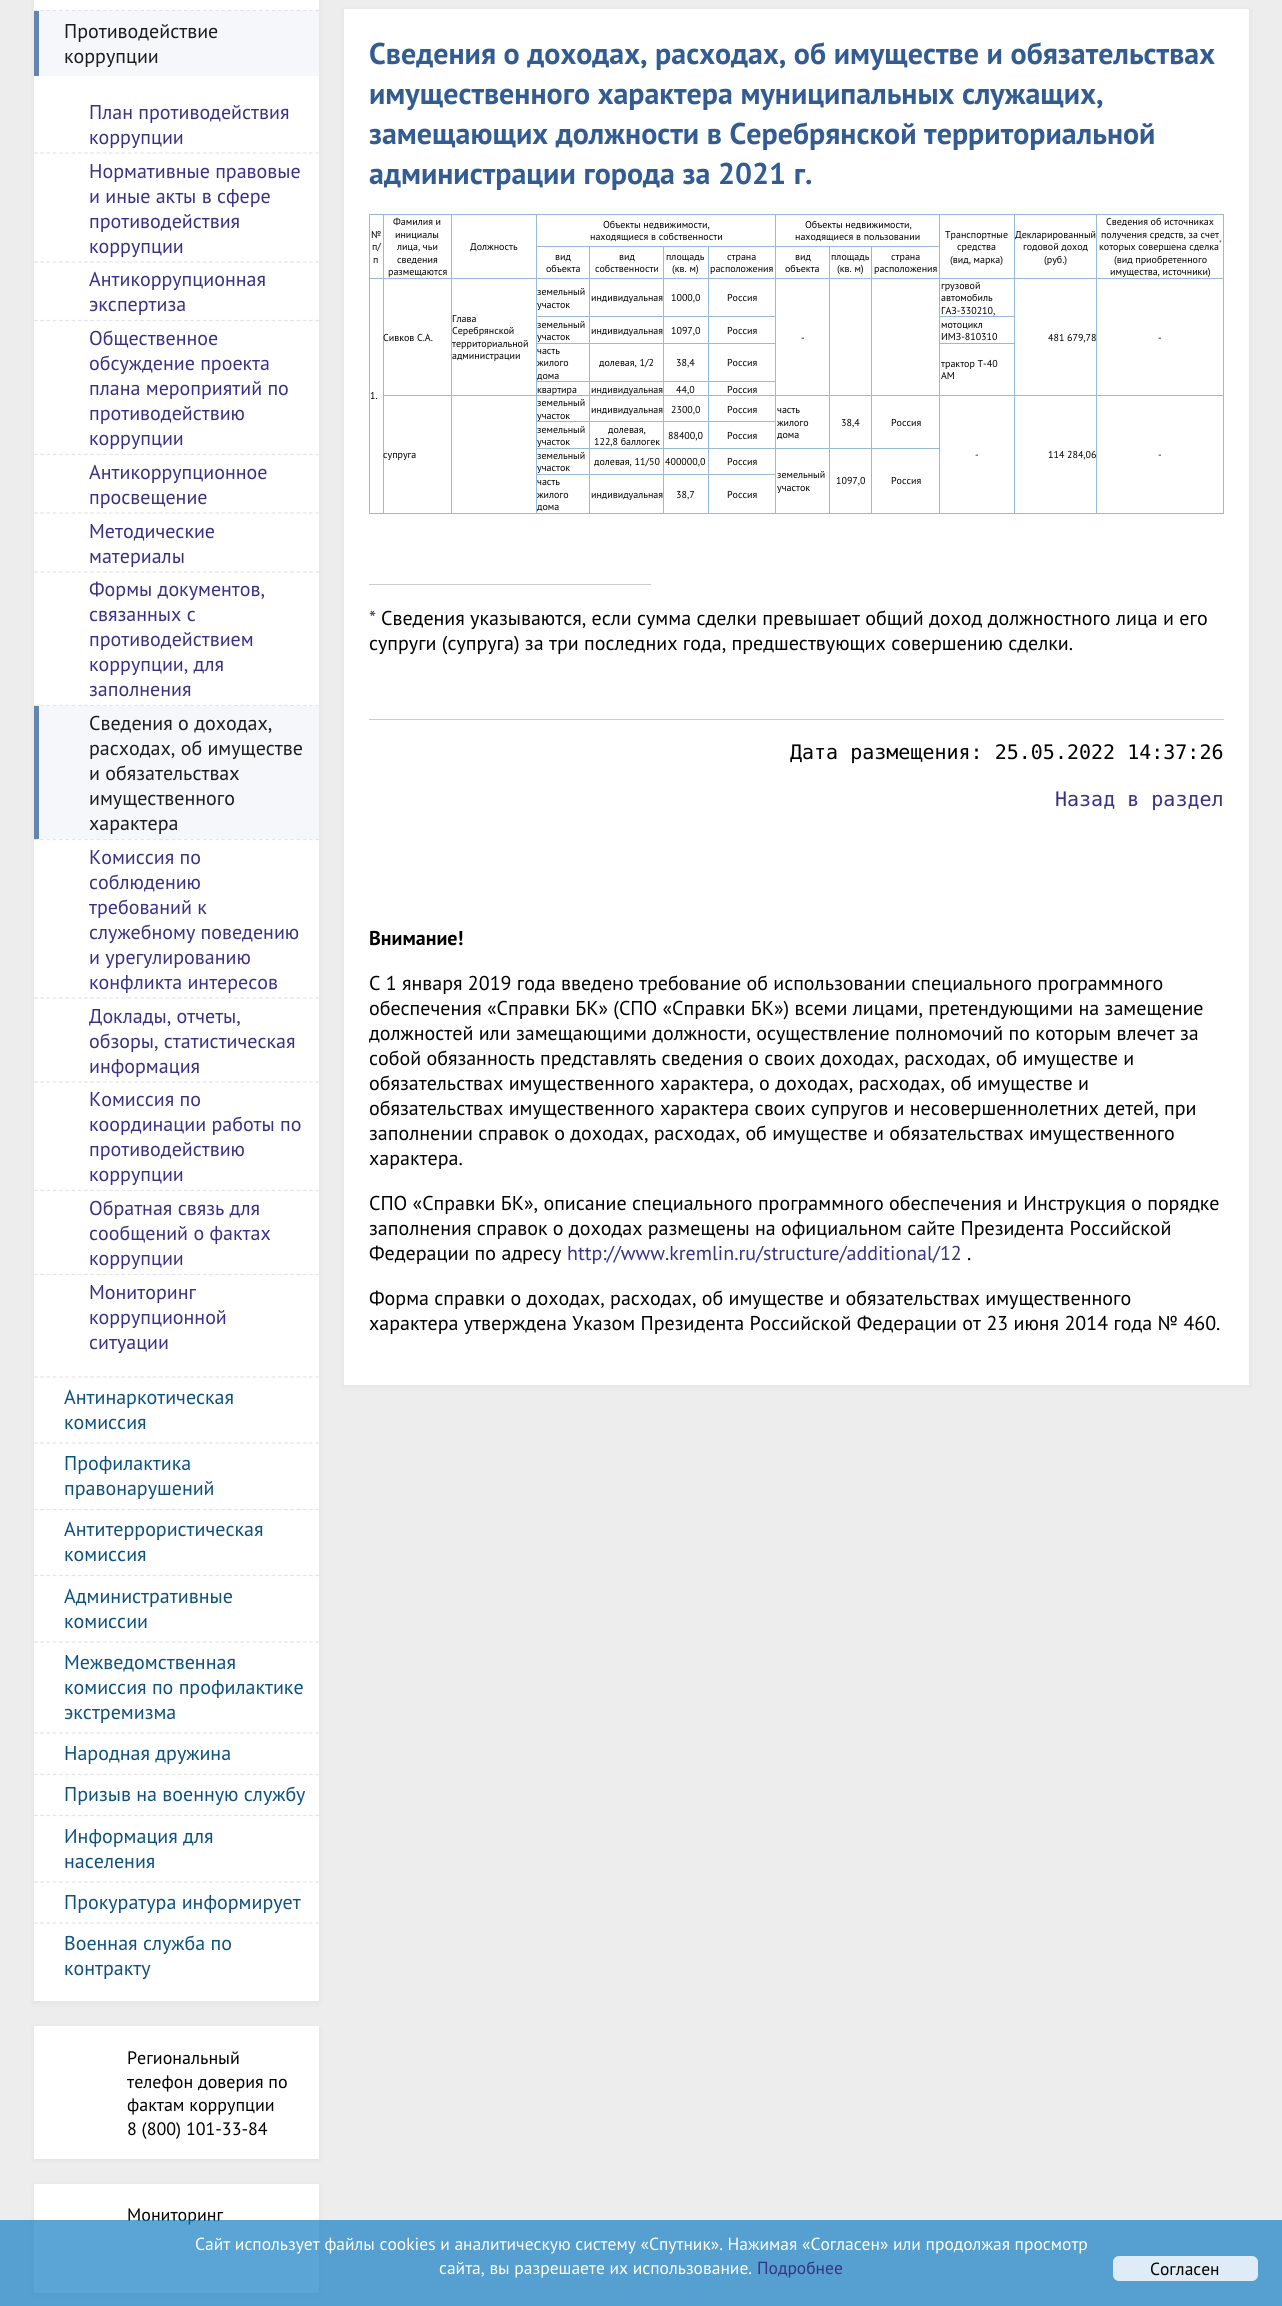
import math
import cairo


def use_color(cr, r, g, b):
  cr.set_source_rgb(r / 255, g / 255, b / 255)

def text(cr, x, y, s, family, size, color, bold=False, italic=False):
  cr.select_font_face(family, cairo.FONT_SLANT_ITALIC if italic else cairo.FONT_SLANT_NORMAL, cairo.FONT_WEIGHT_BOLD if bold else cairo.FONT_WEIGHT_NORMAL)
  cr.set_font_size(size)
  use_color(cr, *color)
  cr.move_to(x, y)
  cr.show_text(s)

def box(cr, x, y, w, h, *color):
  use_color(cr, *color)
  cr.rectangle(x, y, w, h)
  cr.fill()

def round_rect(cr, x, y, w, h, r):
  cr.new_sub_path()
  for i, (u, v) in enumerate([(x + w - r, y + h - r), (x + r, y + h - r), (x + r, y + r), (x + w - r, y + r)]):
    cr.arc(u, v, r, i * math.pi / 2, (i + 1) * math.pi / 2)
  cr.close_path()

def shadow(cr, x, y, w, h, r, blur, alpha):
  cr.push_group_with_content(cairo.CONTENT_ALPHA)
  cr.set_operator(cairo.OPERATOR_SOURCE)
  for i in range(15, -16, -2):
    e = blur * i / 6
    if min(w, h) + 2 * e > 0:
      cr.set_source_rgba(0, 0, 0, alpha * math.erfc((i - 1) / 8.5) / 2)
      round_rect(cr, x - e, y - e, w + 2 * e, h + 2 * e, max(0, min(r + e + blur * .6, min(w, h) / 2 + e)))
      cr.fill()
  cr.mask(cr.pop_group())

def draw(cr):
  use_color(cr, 237, 237, 237)
  cr.paint()
  use_color(cr, 0, 0, 0)
  shadow(cr, 34, -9, 285, 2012, 0, 3, 0.05)
  box(cr, 34, 0, 285, 2001, 255, 255, 255)
  cr.new_path()
  cr.move_to(34, 10.5)
  cr.line_to(319, 10.5)
  use_color(cr, 229, 229, 229)
  cr.set_line_width(1.2)
  cr.set_dash([3.75, 2.5])
  cr.stroke()
  cr.new_path()
  cr.move_to(34, 1377)
  cr.line_to(319, 1377)
  cr.stroke()
  box(cr, 39, 11, 280, 65, 245, 247, 250)
  box(cr, 34, 11, 5, 65, 98, 133, 175)
  cr.new_path()
  cr.move_to(34, 153)
  cr.line_to(319, 153)
  use_color(cr, 229, 229, 229)
  cr.stroke()
  cr.new_path()
  cr.move_to(34, 262)
  cr.line_to(319, 262)
  cr.stroke()
  cr.new_path()
  cr.move_to(34, 320.5)
  cr.line_to(319, 320.5)
  cr.stroke()
  cr.new_path()
  cr.move_to(34, 454.5)
  cr.line_to(319, 454.5)
  cr.stroke()
  cr.new_path()
  cr.move_to(34, 513)
  cr.line_to(319, 513)
  cr.stroke()
  cr.new_path()
  cr.move_to(34, 572)
  cr.line_to(319, 572)
  cr.stroke()
  cr.new_path()
  cr.move_to(34, 705.5)
  cr.line_to(319, 705.5)
  cr.stroke()
  cr.new_path()
  cr.move_to(34, 839.5)
  cr.line_to(319, 839.5)
  cr.stroke()
  box(cr, 39, 706, 280, 133, 245, 247, 250)
  box(cr, 34, 706, 5, 133, 98, 133, 175)
  cr.new_path()
  cr.move_to(34, 998)
  cr.line_to(319, 998)
  use_color(cr, 229, 229, 229)
  cr.stroke()
  cr.new_path()
  cr.move_to(34, 1082)
  cr.line_to(319, 1082)
  cr.stroke()
  cr.new_path()
  cr.move_to(34, 1190.5)
  cr.line_to(319, 1190.5)
  cr.stroke()
  cr.new_path()
  cr.move_to(34, 1274.5)
  cr.line_to(319, 1274.5)
  cr.stroke()
  cr.new_path()
  cr.move_to(34, 1443)
  cr.line_to(319, 1443)
  cr.stroke()
  cr.new_path()
  cr.move_to(34, 1509.5)
  cr.line_to(319, 1509.5)
  cr.stroke()
  cr.new_path()
  cr.move_to(34, 1575.5)
  cr.line_to(319, 1575.5)
  cr.stroke()
  cr.new_path()
  cr.move_to(34, 1642)
  cr.line_to(319, 1642)
  cr.stroke()
  cr.new_path()
  cr.move_to(34, 1733)
  cr.line_to(319, 1733)
  cr.stroke()
  cr.new_path()
  cr.move_to(34, 1774.5)
  cr.line_to(319, 1774.5)
  cr.stroke()
  cr.new_path()
  cr.move_to(34, 1815.5)
  cr.line_to(319, 1815.5)
  cr.stroke()
  cr.new_path()
  cr.move_to(34, 1882)
  cr.line_to(319, 1882)
  cr.stroke()
  cr.new_path()
  cr.move_to(34, 1923)
  cr.line_to(319, 1923)
  cr.stroke()
  use_color(cr, 0, 0, 0)
  shadow(cr, 34, 2028, 285, 132, 0, 3, 0.05)
  box(cr, 34, 2026, 285, 133, 255, 255, 255)
  use_color(cr, 0, 0, 0)
  shadow(cr, 34, 2185, 285, 109, 0, 3, 0.05)
  box(cr, 34, 2184, 285, 109, 255, 255, 255)
  use_color(cr, 0, 0, 0)
  shadow(cr, 344, 10, 905, 1376, 0, 3, 0.05)
  box(cr, 344, 9, 905, 1376, 255, 255, 255)
  box(cr, 369, 214, 855, 1, 153, 186, 215)
  box(cr, 1223, 214, 1, 300, 153, 186, 215)
  box(cr, 369, 513, 855, 1, 153, 186, 215)
  box(cr, 369, 214, 1, 300, 153, 186, 215)
  box(cr, 1096, 278, 128, 1, 153, 186, 215)
  box(cr, 1096, 395, 128, 1, 153, 186, 215)
  box(cr, 1096, 395, 1, 119, 153, 186, 215)
  box(cr, 1014, 395, 84, 1, 153, 186, 215)
  box(cr, 1096, 278, 1, 118, 153, 186, 215)
  box(cr, 1014, 278, 84, 1, 153, 186, 215)
  box(cr, 939, 316, 76, 1, 153, 186, 215)
  box(cr, 939, 343, 76, 1, 153, 186, 215)
  box(cr, 1014, 395, 1, 119, 153, 186, 215)
  box(cr, 939, 395, 76, 1, 153, 186, 215)
  box(cr, 1014, 278, 1, 118, 153, 186, 215)
  box(cr, 939, 278, 76, 1, 153, 186, 215)
  box(cr, 871, 448, 69, 1, 153, 186, 215)
  box(cr, 939, 395, 1, 119, 153, 186, 215)
  box(cr, 871, 395, 69, 1, 153, 186, 215)
  box(cr, 939, 343, 1, 53, 153, 186, 215)
  box(cr, 939, 316, 1, 28, 153, 186, 215)
  box(cr, 939, 278, 1, 40, 153, 186, 215)
  box(cr, 871, 278, 69, 1, 153, 186, 215)
  box(cr, 871, 448, 1, 66, 153, 186, 215)
  box(cr, 829, 448, 44, 1, 153, 186, 215)
  box(cr, 871, 395, 1, 54, 153, 186, 215)
  box(cr, 829, 395, 44, 1, 153, 186, 215)
  box(cr, 871, 278, 1, 118, 153, 186, 215)
  box(cr, 829, 278, 44, 1, 153, 186, 215)
  box(cr, 829, 448, 1, 66, 153, 186, 215)
  box(cr, 775, 448, 55, 1, 153, 186, 215)
  box(cr, 829, 395, 1, 54, 153, 186, 215)
  box(cr, 775, 395, 55, 1, 153, 186, 215)
  box(cr, 829, 278, 1, 118, 153, 186, 215)
  box(cr, 775, 278, 55, 1, 153, 186, 215)
  box(cr, 708, 316, 68, 1, 153, 186, 215)
  box(cr, 708, 343, 68, 1, 153, 186, 215)
  box(cr, 708, 381, 68, 1, 153, 186, 215)
  box(cr, 708, 421, 68, 1, 153, 186, 215)
  box(cr, 708, 474, 68, 1, 153, 186, 215)
  box(cr, 775, 448, 1, 66, 153, 186, 215)
  box(cr, 708, 448, 68, 1, 153, 186, 215)
  box(cr, 775, 395, 1, 54, 153, 186, 215)
  box(cr, 708, 395, 68, 1, 153, 186, 215)
  box(cr, 775, 278, 1, 118, 153, 186, 215)
  box(cr, 708, 278, 68, 1, 153, 186, 215)
  box(cr, 708, 474, 1, 40, 153, 186, 215)
  box(cr, 663, 474, 46, 1, 153, 186, 215)
  box(cr, 708, 448, 1, 27, 153, 186, 215)
  box(cr, 663, 448, 46, 1, 153, 186, 215)
  box(cr, 708, 421, 1, 28, 153, 186, 215)
  box(cr, 663, 421, 46, 1, 153, 186, 215)
  box(cr, 708, 395, 1, 28, 153, 186, 215)
  box(cr, 663, 395, 46, 1, 153, 186, 215)
  box(cr, 708, 381, 1, 15, 153, 186, 215)
  box(cr, 663, 381, 46, 1, 153, 186, 215)
  box(cr, 708, 343, 1, 40, 153, 186, 215)
  box(cr, 663, 343, 46, 1, 153, 186, 215)
  box(cr, 708, 316, 1, 28, 153, 186, 215)
  box(cr, 663, 316, 46, 1, 153, 186, 215)
  box(cr, 708, 278, 1, 40, 153, 186, 215)
  box(cr, 663, 278, 46, 1, 153, 186, 215)
  box(cr, 663, 474, 1, 40, 153, 186, 215)
  box(cr, 589, 474, 75, 1, 153, 186, 215)
  box(cr, 663, 448, 1, 27, 153, 186, 215)
  box(cr, 589, 448, 75, 1, 153, 186, 215)
  box(cr, 663, 421, 1, 28, 153, 186, 215)
  box(cr, 589, 421, 75, 1, 153, 186, 215)
  box(cr, 663, 395, 1, 28, 153, 186, 215)
  box(cr, 589, 395, 75, 1, 153, 186, 215)
  box(cr, 663, 381, 1, 15, 153, 186, 215)
  box(cr, 589, 381, 75, 1, 153, 186, 215)
  box(cr, 663, 343, 1, 40, 153, 186, 215)
  box(cr, 589, 343, 75, 1, 153, 186, 215)
  box(cr, 663, 316, 1, 28, 153, 186, 215)
  box(cr, 589, 316, 75, 1, 153, 186, 215)
  box(cr, 663, 278, 1, 40, 153, 186, 215)
  box(cr, 589, 278, 75, 1, 153, 186, 215)
  box(cr, 589, 474, 1, 40, 153, 186, 215)
  box(cr, 536, 474, 54, 1, 153, 186, 215)
  box(cr, 589, 448, 1, 27, 153, 186, 215)
  box(cr, 536, 448, 54, 1, 153, 186, 215)
  box(cr, 589, 421, 1, 28, 153, 186, 215)
  box(cr, 536, 421, 54, 1, 153, 186, 215)
  box(cr, 589, 395, 1, 28, 153, 186, 215)
  box(cr, 536, 395, 54, 1, 153, 186, 215)
  box(cr, 589, 381, 1, 15, 153, 186, 215)
  box(cr, 536, 381, 54, 1, 153, 186, 215)
  box(cr, 589, 343, 1, 40, 153, 186, 215)
  box(cr, 536, 343, 54, 1, 153, 186, 215)
  box(cr, 589, 316, 1, 28, 153, 186, 215)
  box(cr, 536, 316, 54, 1, 153, 186, 215)
  box(cr, 589, 278, 1, 40, 153, 186, 215)
  box(cr, 536, 278, 54, 1, 153, 186, 215)
  box(cr, 536, 474, 1, 40, 153, 186, 215)
  box(cr, 536, 448, 1, 27, 153, 186, 215)
  box(cr, 536, 421, 1, 28, 153, 186, 215)
  box(cr, 536, 395, 1, 28, 153, 186, 215)
  box(cr, 451, 395, 87, 1, 153, 186, 215)
  box(cr, 536, 381, 1, 15, 153, 186, 215)
  box(cr, 536, 343, 1, 40, 153, 186, 215)
  box(cr, 536, 316, 1, 28, 153, 186, 215)
  box(cr, 536, 278, 1, 40, 153, 186, 215)
  box(cr, 451, 278, 87, 1, 153, 186, 215)
  box(cr, 451, 395, 1, 119, 153, 186, 215)
  box(cr, 383, 395, 70, 1, 153, 186, 215)
  box(cr, 451, 278, 1, 118, 153, 186, 215)
  box(cr, 383, 278, 70, 1, 153, 186, 215)
  box(cr, 383, 395, 1, 119, 153, 186, 215)
  box(cr, 383, 278, 1, 118, 153, 186, 215)
  box(cr, 369, 278, 15, 1, 153, 186, 215)
  box(cr, 383, 214, 1, 65, 153, 186, 215)
  box(cr, 451, 214, 1, 65, 153, 186, 215)
  box(cr, 871, 246, 69, 1, 153, 186, 215)
  box(cr, 871, 246, 1, 33, 153, 186, 215)
  box(cr, 829, 246, 44, 1, 153, 186, 215)
  box(cr, 829, 246, 1, 33, 153, 186, 215)
  box(cr, 775, 246, 55, 1, 153, 186, 215)
  box(cr, 775, 246, 1, 33, 153, 186, 215)
  box(cr, 708, 246, 68, 1, 153, 186, 215)
  box(cr, 775, 214, 1, 34, 153, 186, 215)
  box(cr, 939, 214, 1, 65, 153, 186, 215)
  box(cr, 1014, 214, 1, 65, 153, 186, 215)
  box(cr, 1096, 214, 1, 65, 153, 186, 215)
  box(cr, 708, 246, 1, 33, 153, 186, 215)
  box(cr, 663, 246, 46, 1, 153, 186, 215)
  box(cr, 663, 246, 1, 33, 153, 186, 215)
  box(cr, 589, 246, 75, 1, 153, 186, 215)
  box(cr, 589, 246, 1, 33, 153, 186, 215)
  box(cr, 536, 246, 54, 1, 153, 186, 215)
  box(cr, 536, 214, 1, 65, 153, 186, 215)
  box(cr, 369, 584, 282, 1, 204, 204, 204)
  box(cr, 369, 719, 855, 1, 204, 204, 204)
  text(cr, 64, 38, "Противодействие", "PT Sans", 20, (28, 28, 28))
  text(cr, 64, 63, "коррупции", "PT Sans", 20, (28, 28, 28))
  text(cr, 89, 119, "План противодействия", "PT Sans", 20, (57, 49, 133))
  text(cr, 89, 144, "коррупции", "PT Sans", 20, (57, 49, 133))
  text(cr, 89, 178, "Нормативные правовые", "PT Sans", 20, (57, 49, 133))
  text(cr, 89, 203, "и иные акты в сфере", "PT Sans", 20, (57, 49, 133))
  text(cr, 89, 228, "противодействия", "PT Sans", 20, (57, 49, 133))
  text(cr, 89, 253, "коррупции", "PT Sans", 20, (57, 49, 133))
  text(cr, 89, 286, "Антикоррупционная", "PT Sans", 20, (57, 49, 133))
  text(cr, 89, 311, "экспертиза", "PT Sans", 20, (57, 49, 133))
  text(cr, 89, 345, "Общественное", "PT Sans", 20, (57, 49, 133))
  text(cr, 89, 370, "обсуждение проекта", "PT Sans", 20, (57, 49, 133))
  text(cr, 89, 395, "плана мероприятий по", "PT Sans", 20, (57, 49, 133))
  text(cr, 89, 420, "противодействию", "PT Sans", 20, (57, 49, 133))
  text(cr, 89, 445, "коррупции", "PT Sans", 20, (57, 49, 133))
  text(cr, 89, 479, "Антикоррупционное", "PT Sans", 20, (57, 49, 133))
  text(cr, 89, 504, "просвещение", "PT Sans", 20, (57, 49, 133))
  text(cr, 89, 538, "Методические", "PT Sans", 20, (57, 49, 133))
  text(cr, 89, 563, "материалы", "PT Sans", 20, (57, 49, 133))
  text(cr, 89, 596, "Формы документов,", "PT Sans", 20, (57, 49, 133))
  text(cr, 89, 621, "связанных с", "PT Sans", 20, (57, 49, 133))
  text(cr, 89, 646, "противодействием", "PT Sans", 20, (57, 49, 133))
  text(cr, 89, 671, "коррупции, для", "PT Sans", 20, (57, 49, 133))
  text(cr, 89, 696, "заполнения", "PT Sans", 20, (57, 49, 133))
  text(cr, 89, 730, "Сведения о доходах,", "PT Sans", 20, (28, 28, 28))
  text(cr, 89, 755, "расходах, об имуществе", "PT Sans", 20, (28, 28, 28))
  text(cr, 89, 780, "и обязательствах", "PT Sans", 20, (28, 28, 28))
  text(cr, 89, 805, "имущественного", "PT Sans", 20, (28, 28, 28))
  text(cr, 89, 830, "характера", "PT Sans", 20, (28, 28, 28))
  text(cr, 89, 864, "Комиссия по", "PT Sans", 20, (57, 49, 133))
  text(cr, 89, 889, "соблюдению", "PT Sans", 20, (57, 49, 133))
  text(cr, 89, 914, "требований к", "PT Sans", 20, (57, 49, 133))
  text(cr, 89, 939, "служебному поведению", "PT Sans", 20, (57, 49, 133))
  text(cr, 89, 964, "и урегулированию", "PT Sans", 20, (57, 49, 133))
  text(cr, 89, 989, "конфликта интересов", "PT Sans", 20, (57, 49, 133))
  text(cr, 89, 1023, "Доклады, отчеты,", "PT Sans", 20, (57, 49, 133))
  text(cr, 89, 1048, "обзоры, статистическая", "PT Sans", 20, (57, 49, 133))
  text(cr, 89, 1073, "информация", "PT Sans", 20, (57, 49, 133))
  text(cr, 89, 1106, "Комиссия по", "PT Sans", 20, (57, 49, 133))
  text(cr, 89, 1131, "координации работы по", "PT Sans", 20, (57, 49, 133))
  text(cr, 89, 1156, "противодействию", "PT Sans", 20, (57, 49, 133))
  text(cr, 89, 1181, "коррупции", "PT Sans", 20, (57, 49, 133))
  text(cr, 89, 1215, "Обратная связь для", "PT Sans", 20, (57, 49, 133))
  text(cr, 89, 1240, "сообщений о фактах", "PT Sans", 20, (57, 49, 133))
  text(cr, 89, 1265, "коррупции", "PT Sans", 20, (57, 49, 133))
  text(cr, 89, 1299, "Мониторинг", "PT Sans", 20, (57, 49, 133))
  text(cr, 89, 1324, "коррупционной", "PT Sans", 20, (57, 49, 133))
  text(cr, 89, 1349, "ситуации", "PT Sans", 20, (57, 49, 133))
  text(cr, 64, 1404, "Антинаркотическая", "PT Sans", 20, (14, 81, 126))
  text(cr, 64, 1429, "комиссия", "PT Sans", 20, (14, 81, 126))
  text(cr, 64, 1470, "Профилактика", "PT Sans", 20, (14, 81, 126))
  text(cr, 64, 1495, "правонарушений", "PT Sans", 20, (14, 81, 126))
  text(cr, 64, 1536, "Антитеррористическая", "PT Sans", 20, (14, 81, 126))
  text(cr, 64, 1561, "комиссия", "PT Sans", 20, (14, 81, 126))
  text(cr, 64, 1603, "Административные", "PT Sans", 20, (14, 81, 126))
  text(cr, 64, 1628, "комиссии", "PT Sans", 20, (14, 81, 126))
  text(cr, 64, 1669, "Межведомственная", "PT Sans", 20, (14, 81, 126))
  text(cr, 64, 1694, "комиссия по профилактике", "PT Sans", 20, (14, 81, 126))
  text(cr, 64, 1719, "экстремизма", "PT Sans", 20, (14, 81, 126))
  text(cr, 64, 1760, "Народная дружина", "PT Sans", 20, (14, 81, 126))
  text(cr, 64, 1801, "Призыв на военную службу", "PT Sans", 20, (14, 81, 126))
  text(cr, 64, 1843, "Информация для", "PT Sans", 20, (14, 81, 126))
  text(cr, 64, 1868, "населения", "PT Sans", 20, (14, 81, 126))
  text(cr, 64, 1909, "Прокуратура информирует", "PT Sans", 20, (14, 81, 126))
  text(cr, 64, 1950, "Военная служба по", "PT Sans", 20, (14, 81, 126))
  text(cr, 64, 1975, "контракту", "PT Sans", 20, (14, 81, 126))
  text(cr, 127, 2064, "Региональный", "PT Sans", 18, (0, 0, 0))
  text(cr, 127, 2088, "телефон доверия по", "PT Sans", 18, (0, 0, 0))
  text(cr, 127, 2111, "фактам коррупции", "PT Sans", 18, (0, 0, 0))
  text(cr, 127, 2135, "8 (800) 101-33-84", "PT Sans", 18, (0, 0, 0))
  text(cr, 127, 2221, "Мониторинг", "PT Sans", 18, (0, 0, 0))
  text(cr, 369, 64, "Сведения о доходах, расходах, об имуществе и обязательствах", "PT Sans", 30, (50, 92, 146), bold=True)
  text(cr, 369, 104, "имущественного характера муниципальных служащих,", "PT Sans", 30, (50, 92, 146), bold=True)
  text(cr, 369, 144, "замещающих должности в Серебрянской территориальной", "PT Sans", 30, (50, 92, 146), bold=True)
  text(cr, 369, 184, "администрации города за 2021 г.", "PT Sans", 30, (50, 92, 146), bold=True)
  text(cr, 371, 238, "№", "PT Sans", 10, (0, 0, 0))
  text(cr, 372, 250, "п/", "PT Sans", 10, (0, 0, 0))
  text(cr, 373, 263, "п", "PT Sans", 10, (0, 0, 0))
  text(cr, 393, 225, "Фамилия и", "PT Sans", 10, (0, 0, 0))
  text(cr, 395, 238, "инициалы", "PT Sans", 10, (0, 0, 0))
  text(cr, 397, 250, "лица, чьи", "PT Sans", 10, (0, 0, 0))
  text(cr, 397, 263, "сведения", "PT Sans", 10, (0, 0, 0))
  text(cr, 388, 275, "размещаются", "PT Sans", 10, (0, 0, 0))
  text(cr, 470, 250, "Должность", "PT Sans", 10, (0, 0, 0))
  text(cr, 603, 228, "Объекты недвижимости,", "PT Sans", 10, (0, 0, 0))
  text(cr, 590, 240, "находящиеся в собственности", "PT Sans", 10, (0, 0, 0))
  text(cr, 805, 228, "Объекты недвижимости,", "PT Sans", 10, (0, 0, 0))
  text(cr, 795, 240, "находящиеся в пользовании", "PT Sans", 10, (0, 0, 0))
  text(cr, 945, 238, "Транспортные", "PT Sans", 10, (0, 0, 0))
  text(cr, 957, 250, "средства", "PT Sans", 10, (0, 0, 0))
  text(cr, 950, 263, "(вид, марка)", "PT Sans", 10, (0, 0, 0))
  text(cr, 1015, 238, "Декларированный", "PT Sans", 10, (0, 0, 0))
  text(cr, 1023, 250, "годовой доход", "PT Sans", 10, (0, 0, 0))
  text(cr, 1044, 263, "(руб.)", "PT Sans", 10, (0, 0, 0))
  text(cr, 1106, 225, "Сведения об источниках", "PT Sans", 10, (0, 0, 0))
  text(cr, 1101, 238, "получения средств, за счет", "PT Sans", 10, (0, 0, 0))
  text(cr, 1219, 246, "*", "PT Sans", 8, (57, 49, 133))
  text(cr, 1099, 250, "которых совершена сделка", "PT Sans", 10, (0, 0, 0))
  text(cr, 1114, 263, "(вид приобретенного", "PT Sans", 10, (0, 0, 0))
  text(cr, 1110, 275, "имущества, источники)", "PT Sans", 10, (0, 0, 0))
  text(cr, 555, 260, "вид", "PT Sans", 10, (0, 0, 0))
  text(cr, 546, 272, "объекта", "PT Sans", 10, (0, 0, 0))
  text(cr, 619, 260, "вид", "PT Sans", 10, (0, 0, 0))
  text(cr, 595, 272, "собственности", "PT Sans", 10, (0, 0, 0))
  text(cr, 666, 260, "площадь", "PT Sans", 10, (0, 0, 0))
  text(cr, 672, 272, "(кв. м)", "PT Sans", 10, (0, 0, 0))
  text(cr, 727, 260, "страна", "PT Sans", 10, (0, 0, 0))
  text(cr, 710, 272, "расположения", "PT Sans", 10, (0, 0, 0))
  text(cr, 795, 260, "вид", "PT Sans", 10, (0, 0, 0))
  text(cr, 785, 272, "объекта", "PT Sans", 10, (0, 0, 0))
  text(cr, 831, 260, "площадь", "PT Sans", 10, (0, 0, 0))
  text(cr, 837, 272, "(кв. м)", "PT Sans", 10, (0, 0, 0))
  text(cr, 891, 260, "страна", "PT Sans", 10, (0, 0, 0))
  text(cr, 874, 272, "расположения", "PT Sans", 10, (0, 0, 0))
  text(cr, 537, 295, "земельный", "PT Sans", 10, (0, 0, 0))
  text(cr, 537, 308, "участок", "PT Sans", 10, (0, 0, 0))
  text(cr, 591, 301, "индивидуальная", "PT Sans", 10, (0, 0, 0))
  text(cr, 671, 301, "1000,0", "PT Sans", 10, (0, 0, 0))
  text(cr, 727, 301, "Россия", "PT Sans", 10, (0, 0, 0))
  text(cr, 941, 289, "грузовой", "PT Sans", 10, (0, 0, 0))
  text(cr, 941, 301, "автомобиль", "PT Sans", 10, (0, 0, 0))
  text(cr, 941, 314, "ГАЗ-330210,", "PT Sans", 10, (0, 0, 0))
  text(cr, 383, 341, "Сивков С.А.", "PT Sans", 10, (0, 0, 0))
  text(cr, 452, 322, "Глава", "PT Sans", 10, (0, 0, 0))
  text(cr, 452, 334, "Серебрянской", "PT Sans", 10, (0, 0, 0))
  text(cr, 452, 347, "территориальной", "PT Sans", 10, (0, 0, 0))
  text(cr, 452, 359, "администрации", "PT Sans", 10, (0, 0, 0))
  text(cr, 801, 341, "-", "PT Sans", 10, (0, 0, 0))
  text(cr, 1048, 341, "481 679,78", "PT Sans", 10, (0, 0, 0))
  text(cr, 1158, 341, "-", "PT Sans", 10, (0, 0, 0))
  text(cr, 370, 399, "1.", "PT Sans", 10, (0, 0, 0))
  text(cr, 537, 328, "земельный", "PT Sans", 10, (0, 0, 0))
  text(cr, 537, 340, "участок", "PT Sans", 10, (0, 0, 0))
  text(cr, 591, 334, "индивидуальная", "PT Sans", 10, (0, 0, 0))
  text(cr, 671, 334, "1097,0", "PT Sans", 10, (0, 0, 0))
  text(cr, 727, 334, "Россия", "PT Sans", 10, (0, 0, 0))
  text(cr, 941, 328, "мотоцикл", "PT Sans", 10, (0, 0, 0))
  text(cr, 941, 340, "ИМЗ-810310", "PT Sans", 10, (0, 0, 0))
  text(cr, 537, 354, "часть", "PT Sans", 10, (0, 0, 0))
  text(cr, 537, 366, "жилого", "PT Sans", 10, (0, 0, 0))
  text(cr, 537, 379, "дома", "PT Sans", 10, (0, 0, 0))
  text(cr, 599, 366, "долевая, 1/2", "PT Sans", 10, (0, 0, 0))
  text(cr, 676, 366, "38,4", "PT Sans", 10, (0, 0, 0))
  text(cr, 727, 366, "Россия", "PT Sans", 10, (0, 0, 0))
  text(cr, 941, 367, "трактор Т-40", "PT Sans", 10, (0, 0, 0))
  text(cr, 941, 379, "АМ", "PT Sans", 10, (0, 0, 0))
  text(cr, 537, 393, "квартира", "PT Sans", 10, (0, 0, 0))
  text(cr, 591, 393, "индивидуальная", "PT Sans", 10, (0, 0, 0))
  text(cr, 676, 393, "44,0", "PT Sans", 10, (0, 0, 0))
  text(cr, 727, 393, "Россия", "PT Sans", 10, (0, 0, 0))
  text(cr, 537, 406, "земельный", "PT Sans", 10, (0, 0, 0))
  text(cr, 537, 419, "участок", "PT Sans", 10, (0, 0, 0))
  text(cr, 591, 413, "индивидуальная", "PT Sans", 10, (0, 0, 0))
  text(cr, 671, 413, "2300,0", "PT Sans", 10, (0, 0, 0))
  text(cr, 727, 413, "Россия", "PT Sans", 10, (0, 0, 0))
  text(cr, 777, 413, "часть", "PT Sans", 10, (0, 0, 0))
  text(cr, 777, 426, "жилого", "PT Sans", 10, (0, 0, 0))
  text(cr, 777, 438, "дома", "PT Sans", 10, (0, 0, 0))
  text(cr, 841, 426, "38,4", "PT Sans", 10, (0, 0, 0))
  text(cr, 891, 426, "Россия", "PT Sans", 10, (0, 0, 0))
  text(cr, 383, 458, "супруга", "PT Sans", 10, (0, 0, 0))
  text(cr, 975, 458, "-", "PT Sans", 10, (0, 0, 0))
  text(cr, 1048, 458, "114 284,06", "PT Sans", 10, (0, 0, 0))
  text(cr, 1158, 458, "-", "PT Sans", 10, (0, 0, 0))
  text(cr, 537, 433, "земельный", "PT Sans", 10, (0, 0, 0))
  text(cr, 537, 445, "участок", "PT Sans", 10, (0, 0, 0))
  text(cr, 608, 433, "долевая,", "PT Sans", 10, (0, 0, 0))
  text(cr, 594, 445, "122,8 баллогек", "PT Sans", 10, (0, 0, 0))
  text(cr, 668, 439, "88400,0", "PT Sans", 10, (0, 0, 0))
  text(cr, 727, 439, "Россия", "PT Sans", 10, (0, 0, 0))
  text(cr, 537, 459, "земельный", "PT Sans", 10, (0, 0, 0))
  text(cr, 537, 471, "участок", "PT Sans", 10, (0, 0, 0))
  text(cr, 594, 465, "долевая, 11/50", "PT Sans", 10, (0, 0, 0))
  text(cr, 665, 465, "400000,0", "PT Sans", 10, (0, 0, 0))
  text(cr, 727, 465, "Россия", "PT Sans", 10, (0, 0, 0))
  text(cr, 777, 478, "земельный", "PT Sans", 10, (0, 0, 0))
  text(cr, 777, 491, "участок", "PT Sans", 10, (0, 0, 0))
  text(cr, 836, 484, "1097,0", "PT Sans", 10, (0, 0, 0))
  text(cr, 891, 484, "Россия", "PT Sans", 10, (0, 0, 0))
  text(cr, 537, 485, "часть", "PT Sans", 10, (0, 0, 0))
  text(cr, 537, 498, "жилого", "PT Sans", 10, (0, 0, 0))
  text(cr, 537, 510, "дома", "PT Sans", 10, (0, 0, 0))
  text(cr, 591, 498, "индивидуальная", "PT Sans", 10, (0, 0, 0))
  text(cr, 676, 498, "38,7", "PT Sans", 10, (0, 0, 0))
  text(cr, 727, 498, "Россия", "PT Sans", 10, (0, 0, 0))
  text(cr, 369, 625, "*", "PT Sans", 20, (57, 49, 133))
  text(cr, 381, 625, "Сведения указываются, если сумма сделки превышает общий доход должностного лица и его", "PT Sans", 20, (0, 0, 0))
  text(cr, 369, 650, "супруги (супруга) за три последних года, предшествующих совершению сделки.", "PT Sans", 20, (0, 0, 0))
  text(cr, 790, 759, "Дата размещения: 25.05.2022 14:37:26", "DejaVu Sans Mono", 20, (0, 0, 0))
  text(cr, 1055, 806, "Назад в раздел", "DejaVu Sans Mono", 20, (57, 49, 133))
  text(cr, 369, 945, "Внимание!", "PT Sans", 20, (0, 0, 0), bold=True)
  text(cr, 369, 990, "С 1 января 2019 года введено требование об использовании специального программного", "PT Sans", 20, (0, 0, 0))
  text(cr, 369, 1015, "обеспечения «Справки БК» (СПО «Справки БК») всеми лицами, претендующими на замещение", "PT Sans", 20, (0, 0, 0))
  text(cr, 369, 1040, "должностей или замещающими должности, осуществление полномочий по которым влечет за", "PT Sans", 20, (0, 0, 0))
  text(cr, 369, 1065, "собой обязанность представлять сведения о своих доходах, расходах, об имуществе и", "PT Sans", 20, (0, 0, 0))
  text(cr, 369, 1090, "обязательствах имущественного характера, о доходах, расходах, об имуществе и", "PT Sans", 20, (0, 0, 0))
  text(cr, 369, 1115, "обязательствах имущественного характера своих супругов и несовершеннолетних детей, при", "PT Sans", 20, (0, 0, 0))
  text(cr, 369, 1140, "заполнении справок о доходах, расходах, об имуществе и обязательствах имущественного", "PT Sans", 20, (0, 0, 0))
  text(cr, 369, 1165, "характера.", "PT Sans", 20, (0, 0, 0))
  text(cr, 369, 1210, "СПО «Справки БК», описание специального программного обеспечения и Инструкция о порядке", "PT Sans", 20, (0, 0, 0))
  text(cr, 369, 1235, "заполнения справок о доходах размещены на официальном сайте Президента Российской", "PT Sans", 20, (0, 0, 0))
  text(cr, 369, 1260, "Федерации по адресу", "PT Sans", 20, (0, 0, 0))
  text(cr, 567, 1260, "http://www.kremlin.ru/structure/additional/12", "PT Sans", 20, (57, 49, 133))
  text(cr, 967, 1260, ".", "PT Sans", 20, (0, 0, 0))
  text(cr, 369, 1305, "Форма справки о доходах, расходах, об имуществе и обязательствах имущественного", "PT Sans", 20, (0, 0, 0))
  text(cr, 369, 1330, "характера утверждена Указом Президента Российской Федерации от 23 июня 2014 года № 460.", "PT Sans", 20, (0, 0, 0))
  cr.set_source_rgba(0.082, 0.498, 0.769, 0.7)
  cr.rectangle(0, 2220, 1282, 86)
  cr.fill()
  text(cr, 195, 2250, "Сайт использует файлы cookies и аналитическую систему «Спутник». Нажимая «Согласен» или продолжая просмотр", "PT Sans", 17.5, (255, 255, 255))
  text(cr, 439, 2274, "сайта, вы разрешаете их использование.", "PT Sans", 17.5, (255, 255, 255))
  text(cr, 757, 2274, "Подробнее", "PT Sans", 17.5, (57, 49, 133))
  use_color(cr, 221, 236, 246)
  round_rect(cr, 1113, 2256, 145, 25, 6)
  cr.fill()
  text(cr, 1150, 2275, "Согласен", "PT Sans", 17.5, (0, 0, 0))


surface = cairo.ImageSurface(cairo.FORMAT_RGB24, 1282, 2306)
cr = cairo.Context(surface)
options = cairo.FontOptions()
options.set_hint_metrics(cairo.HINT_METRICS_OFF)
options.set_hint_style(cairo.HINT_STYLE_NONE)
cr.set_font_options(options)
cr.set_miter_limit(4)
draw(cr)
surface.write_to_png("out.png")
